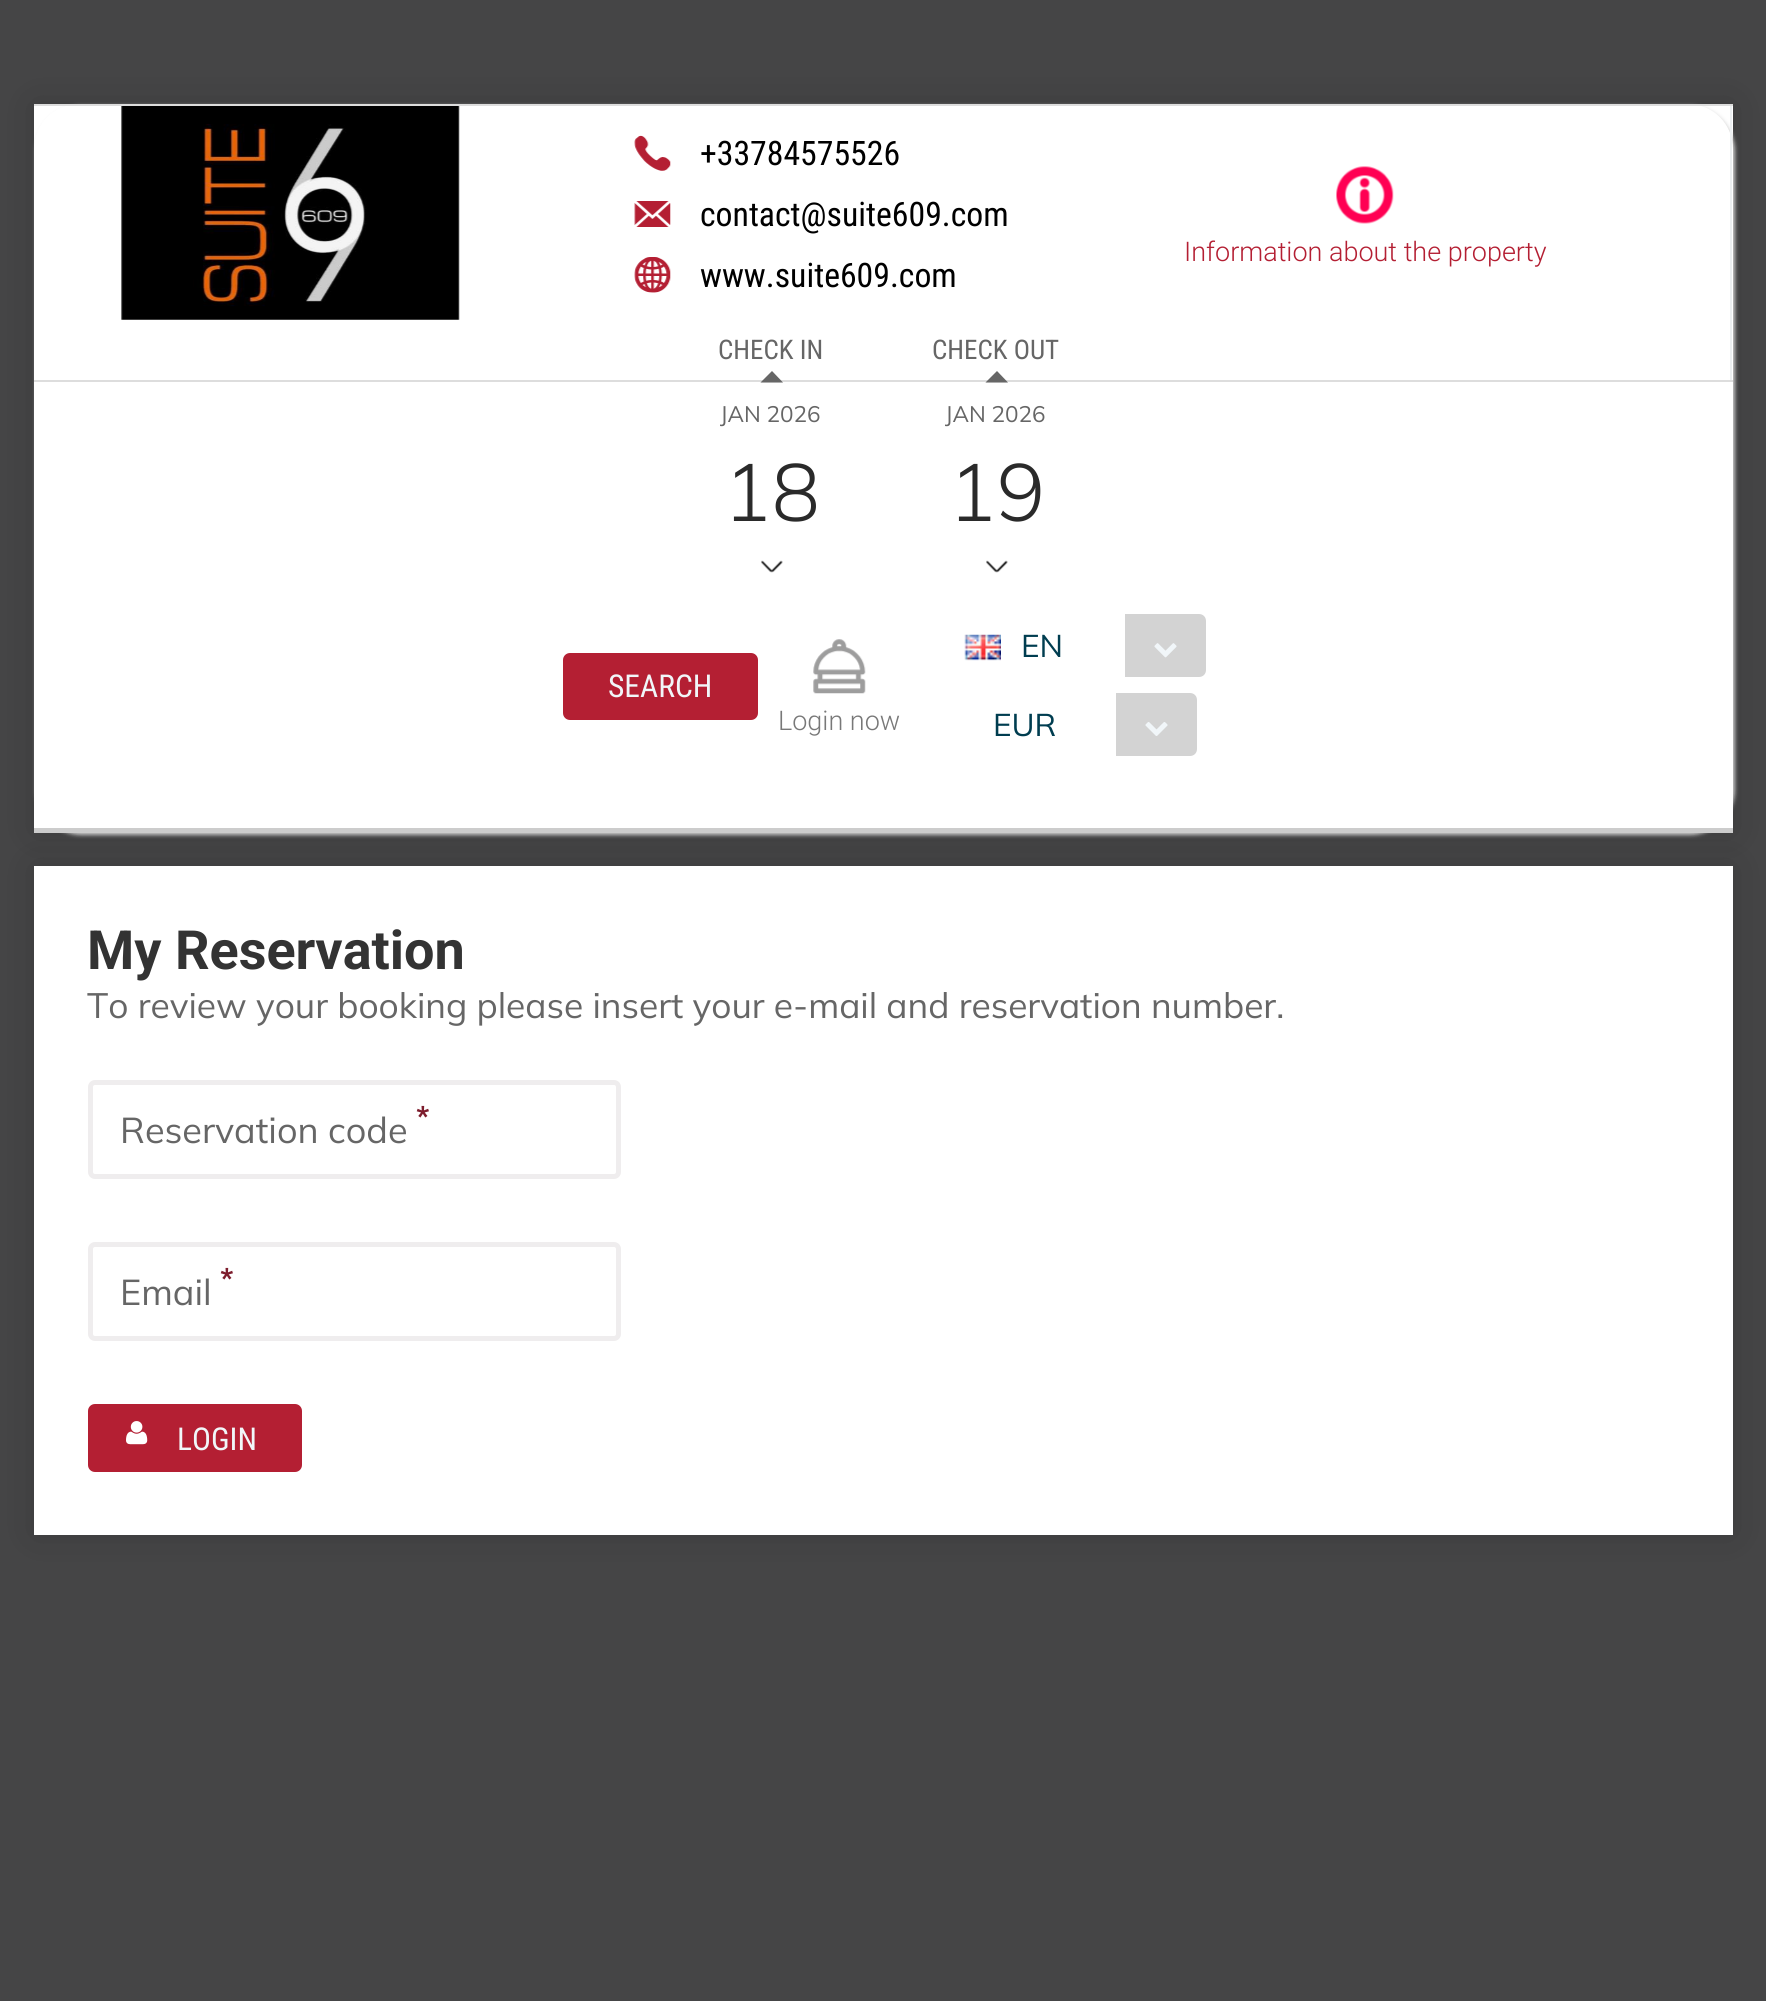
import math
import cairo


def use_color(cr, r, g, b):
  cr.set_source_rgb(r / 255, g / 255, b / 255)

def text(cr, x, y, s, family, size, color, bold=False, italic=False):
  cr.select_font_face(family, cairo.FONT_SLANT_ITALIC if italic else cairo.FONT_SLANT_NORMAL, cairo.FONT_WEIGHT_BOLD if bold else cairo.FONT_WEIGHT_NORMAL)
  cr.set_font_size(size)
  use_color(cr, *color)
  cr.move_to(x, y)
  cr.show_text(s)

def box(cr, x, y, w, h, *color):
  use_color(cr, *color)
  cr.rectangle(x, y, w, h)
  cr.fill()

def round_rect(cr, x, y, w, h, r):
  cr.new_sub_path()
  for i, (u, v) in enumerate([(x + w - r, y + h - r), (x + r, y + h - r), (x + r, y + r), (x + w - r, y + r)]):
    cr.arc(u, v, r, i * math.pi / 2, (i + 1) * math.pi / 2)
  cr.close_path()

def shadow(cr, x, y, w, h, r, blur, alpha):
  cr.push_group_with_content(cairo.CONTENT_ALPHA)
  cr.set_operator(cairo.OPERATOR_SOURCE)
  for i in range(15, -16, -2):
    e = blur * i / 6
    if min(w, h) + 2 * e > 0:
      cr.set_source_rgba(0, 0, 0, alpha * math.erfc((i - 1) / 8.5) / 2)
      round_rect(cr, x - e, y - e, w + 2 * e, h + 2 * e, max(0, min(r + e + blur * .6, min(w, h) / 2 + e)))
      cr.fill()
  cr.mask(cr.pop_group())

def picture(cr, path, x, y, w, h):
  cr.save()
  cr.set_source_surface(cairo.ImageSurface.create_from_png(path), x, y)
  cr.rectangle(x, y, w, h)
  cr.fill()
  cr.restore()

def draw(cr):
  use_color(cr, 69, 69, 70)
  cr.paint()
  use_color(cr, 0, 0, 0)
  shadow(cr, 34, 866, 1699, 669, 0, 17.5, 0.15)
  box(cr, 34, 866, 1699, 669, 255, 255, 255)
  use_color(cr, 0, 0, 0)
  shadow(cr, 34, 104, 1699, 729, 0, 17.5, 0.15)
  box(cr, 34, 106, 1699, 43, 255, 255, 255)
  use_color(cr, 204, 204, 204)
  shadow(cr, 36, 106, 1699, 729, 45, 2, 1)
  use_color(cr, 255, 255, 255)
  cr.new_path()
  cr.move_to(79, 104)
  cr.line_to(1688, 104)
  cr.curve_to(1713, 104, 1733, 124, 1733, 149)
  cr.line_to(1733, 833)
  cr.line_to(34, 833)
  cr.line_to(34, 149)
  cr.curve_to(34, 124, 54, 104, 79, 104)
  cr.close_path()
  cr.fill()
  box(cr, 34, 828, 1699, 5, 204, 204, 204)
  box(cr, 34, 104, 1699, 2, 221, 221, 221)
  box(cr, 1730, 106, 2, 274, 236, 239, 241)
  picture(cr, "img_01.png", 121, 106, 339, 214)
  picture(cr, "img_02.png", 634, 135, 37, 36)
  picture(cr, "img_03.png", 634, 201, 37, 26)
  picture(cr, "img_04.png", 634, 257, 37, 36)
  picture(cr, "img_05.png", 1336, 166, 58, 58)
  box(cr, 34, 380, 1699, 2, 221, 221, 221)
  use_color(cr, 102, 102, 102)
  cr.new_path()
  cr.move_to(783, 382.5)
  cr.line_to(760.5, 382.5)
  cr.line_to(772, 371)
  cr.close_path()
  cr.fill()
  picture(cr, "img_06.png", 761, 560, 22, 13)
  cr.new_path()
  cr.move_to(1008, 382.5)
  cr.line_to(985.5, 382.5)
  cr.line_to(997, 371)
  cr.close_path()
  cr.fill()
  picture(cr, "img_06.png", 986, 560, 22, 13)
  use_color(cr, 180, 31, 51)
  round_rect(cr, 563, 653, 195, 67, 7)
  cr.fill()
  picture(cr, "img_07.png", 813, 639, 53, 55)
  picture(cr, "img_08.png", 964, 634, 37, 27)
  use_color(cr, 211, 211, 211)
  cr.new_path()
  cr.move_to(1125, 614)
  cr.line_to(1199, 614)
  cr.curve_to(1203, 614, 1206, 617, 1206, 621)
  cr.line_to(1206, 670)
  cr.curve_to(1206, 674, 1203, 677, 1199, 677)
  cr.line_to(1125, 677)
  cr.close_path()
  cr.fill()
  picture(cr, "img_09.png", 1154, 643, 23, 15)
  cr.new_path()
  cr.move_to(1116, 693)
  cr.line_to(1190, 693)
  cr.curve_to(1194, 693, 1197, 696, 1197, 700)
  cr.line_to(1197, 749)
  cr.curve_to(1197, 753, 1194, 756, 1190, 756)
  cr.line_to(1116, 756)
  cr.close_path()
  cr.fill()
  picture(cr, "img_10.png", 1145, 722, 23, 14)
  round_rect(cr, 90.5, 1082.5, 528, 94, 4.5)
  use_color(cr, 239, 237, 238)
  cr.set_line_width(5)
  cr.stroke()
  round_rect(cr, 90.5, 1244.5, 528, 94, 4.5)
  cr.stroke()
  use_color(cr, 180, 31, 51)
  round_rect(cr, 88, 1404, 214, 68, 7)
  cr.fill()
  picture(cr, "img_11.png", 126, 1421, 22, 24)
  text(cr, 700, 165, "+33784575526", "Roboto Condensed", 33.75, (0, 0, 0))
  text(cr, 700, 226, "contact@suite609.com", "Roboto Condensed", 33.75, (0, 0, 0))
  text(cr, 700, 287, "www.suite609.com", "Roboto Condensed", 33.75, (0, 0, 0))
  text(cr, 1184, 261, "Information about the property", "Roboto Light", 27, (180, 31, 51))
  text(cr, 718, 359, "CHECK IN", "Roboto Condensed", 27, (102, 102, 102))
  text(cr, 720, 422, "JAN 2026", "Mulish", 22.5, (102, 102, 102))
  text(cr, 723, 521, "18", "Mulish Light", 81, (42, 42, 42))
  text(cr, 932, 359, "CHECK OUT", "Roboto Condensed", 27, (102, 102, 102))
  text(cr, 945, 422, "JAN 2026", "Mulish", 22.5, (102, 102, 102))
  text(cr, 948, 521, "19", "Mulish Light", 81, (42, 42, 42))
  text(cr, 608, 697, "SEARCH", "Roboto Condensed", 31.5, (241, 246, 249))
  text(cr, 778, 730, "Login now", "Roboto Light", 27, (120, 120, 120))
  text(cr, 1021, 657, "EN", "Mulish", 31.5, (0, 61, 80))
  text(cr, 993, 736, "EUR", "Mulish", 31.5, (0, 61, 80))
  text(cr, 87, 969, "My Reservation", "Roboto", 54, (51, 51, 51), bold=True)
  text(cr, 87, 1018, "To review your booking please insert your e-mail and reservation number.", "Mulish", 35.3, (102, 102, 102))
  text(cr, 416, 1128, "*", "Mulish", 30, (125, 29, 45), bold=True)
  text(cr, 120, 1143, "Reservation code", "Mulish", 36, (102, 102, 102))
  text(cr, 220, 1290, "*", "Mulish", 30, (125, 29, 45), bold=True)
  text(cr, 120, 1305, "Email", "Mulish", 36, (102, 102, 102))
  text(cr, 177, 1450, "LOGIN", "Roboto Condensed", 31.5, (241, 246, 249))


surface = cairo.ImageSurface(cairo.FORMAT_RGB24, 1766, 2001)
cr = cairo.Context(surface)
options = cairo.FontOptions()
options.set_hint_metrics(cairo.HINT_METRICS_OFF)
options.set_hint_style(cairo.HINT_STYLE_NONE)
cr.set_font_options(options)
cr.set_miter_limit(4)
draw(cr)
surface.write_to_png("out.png")
